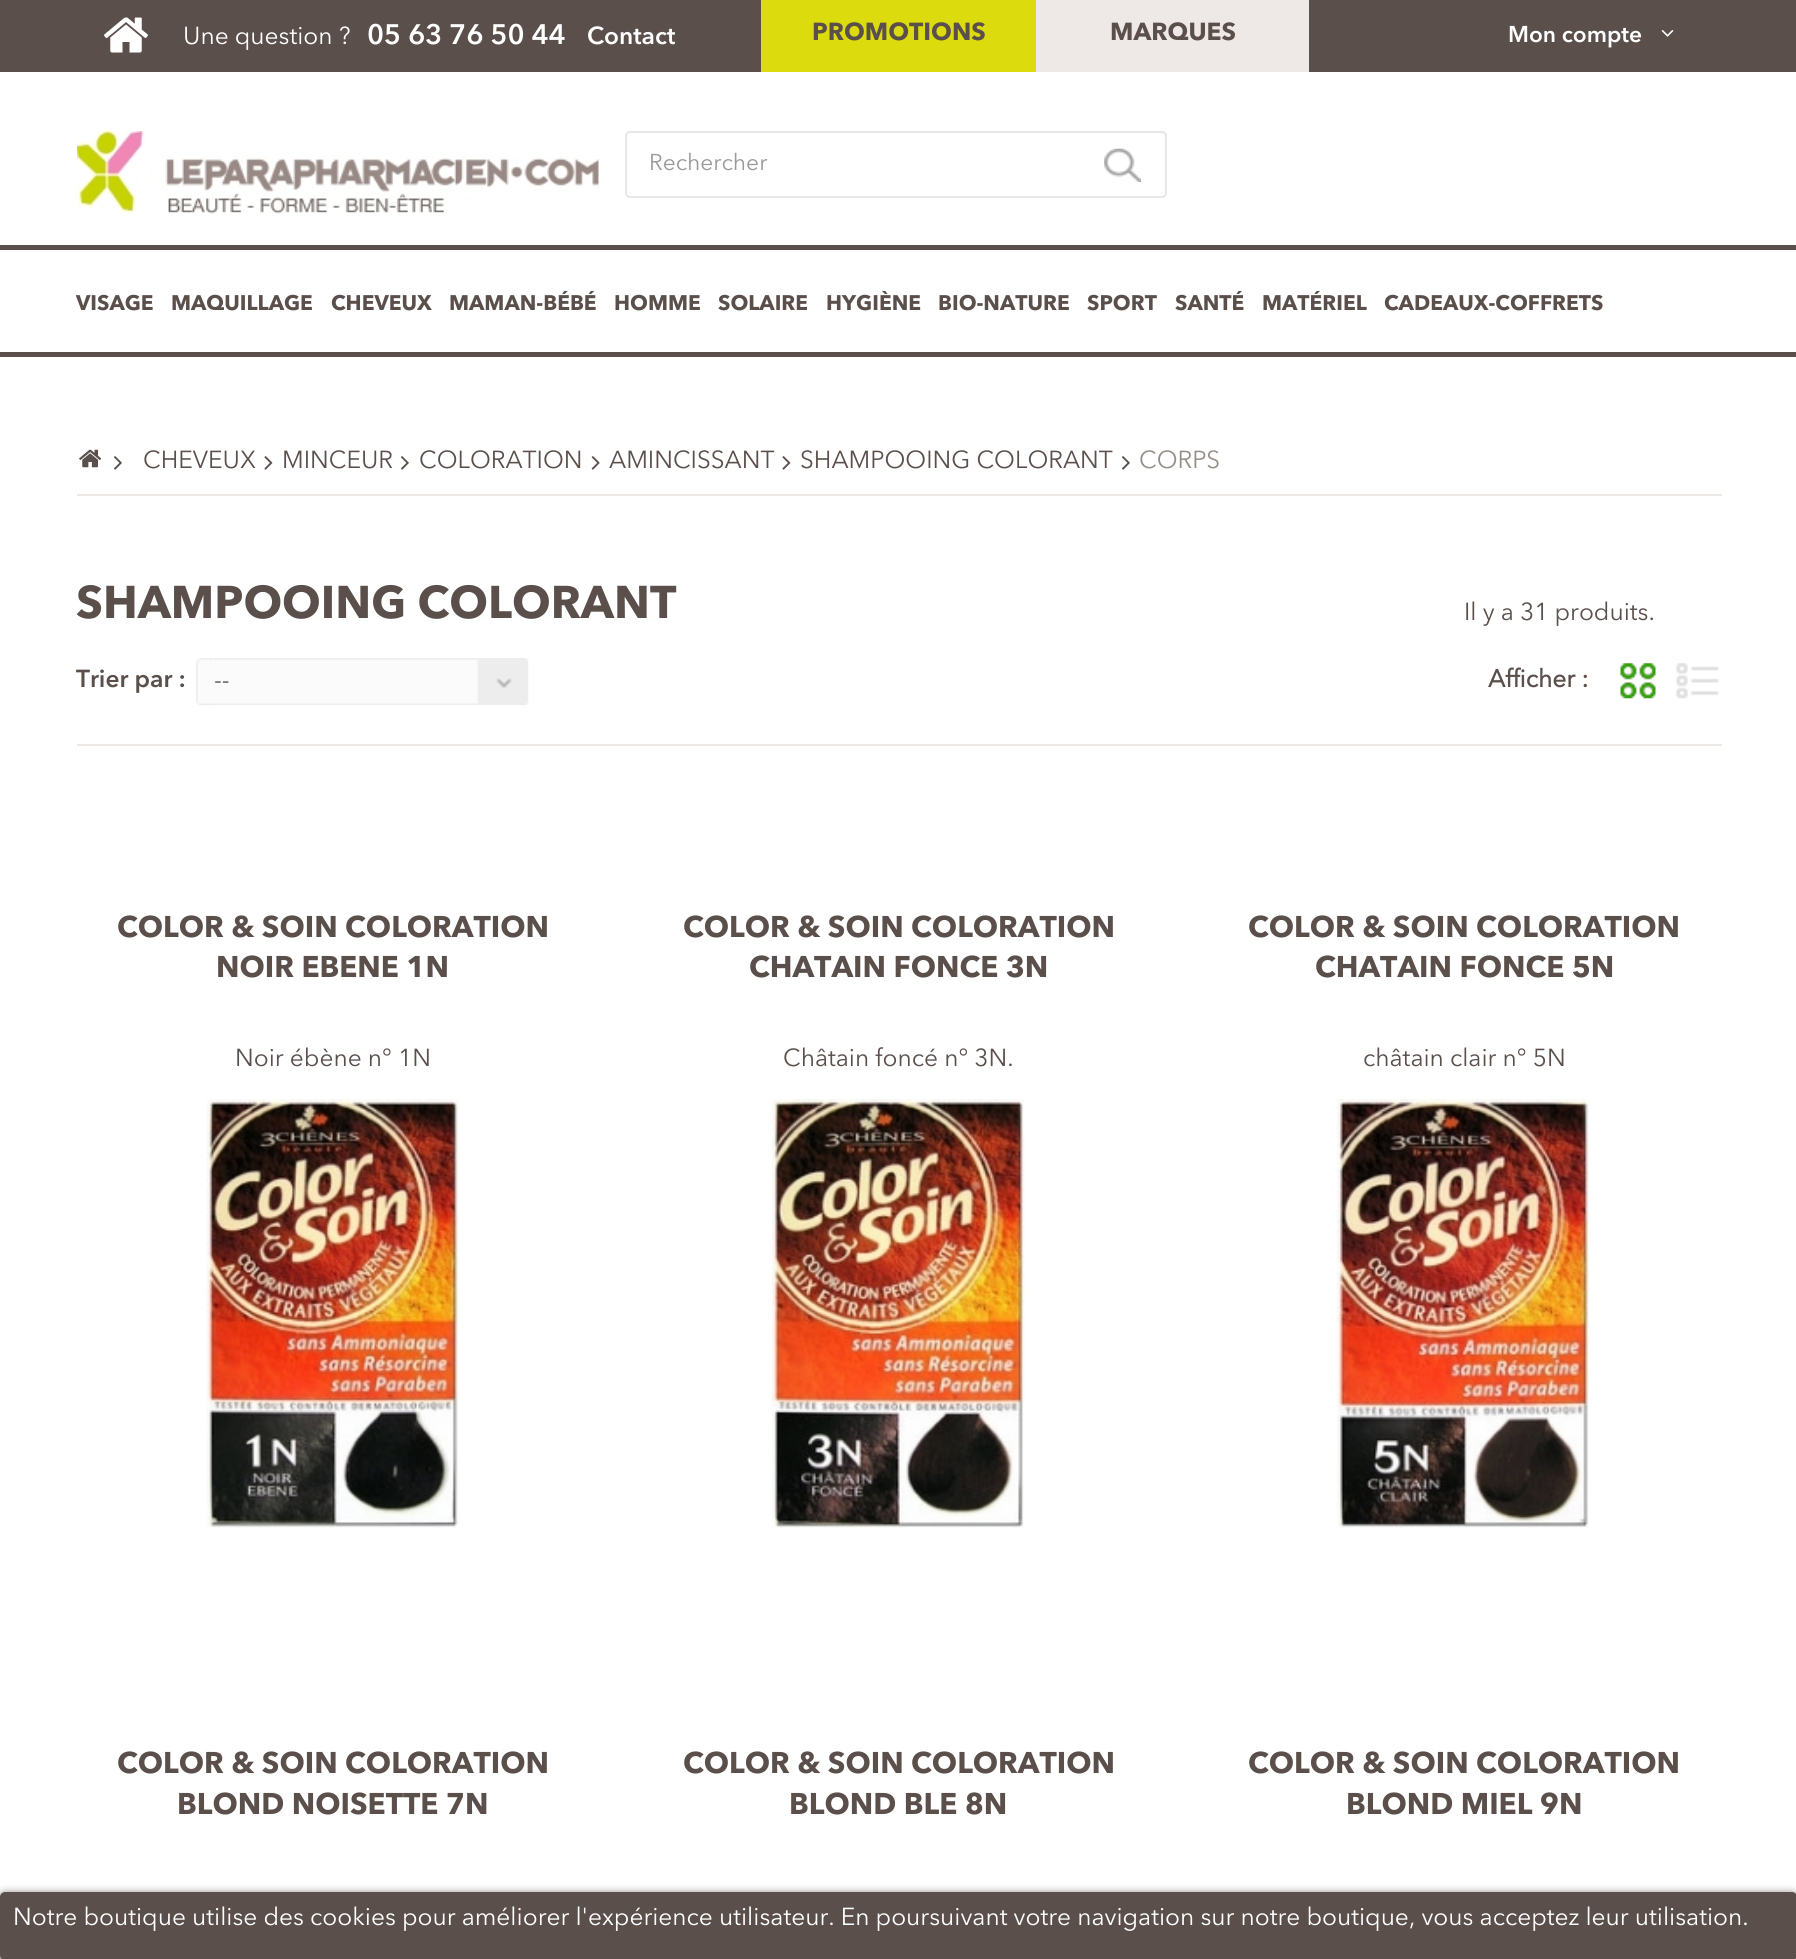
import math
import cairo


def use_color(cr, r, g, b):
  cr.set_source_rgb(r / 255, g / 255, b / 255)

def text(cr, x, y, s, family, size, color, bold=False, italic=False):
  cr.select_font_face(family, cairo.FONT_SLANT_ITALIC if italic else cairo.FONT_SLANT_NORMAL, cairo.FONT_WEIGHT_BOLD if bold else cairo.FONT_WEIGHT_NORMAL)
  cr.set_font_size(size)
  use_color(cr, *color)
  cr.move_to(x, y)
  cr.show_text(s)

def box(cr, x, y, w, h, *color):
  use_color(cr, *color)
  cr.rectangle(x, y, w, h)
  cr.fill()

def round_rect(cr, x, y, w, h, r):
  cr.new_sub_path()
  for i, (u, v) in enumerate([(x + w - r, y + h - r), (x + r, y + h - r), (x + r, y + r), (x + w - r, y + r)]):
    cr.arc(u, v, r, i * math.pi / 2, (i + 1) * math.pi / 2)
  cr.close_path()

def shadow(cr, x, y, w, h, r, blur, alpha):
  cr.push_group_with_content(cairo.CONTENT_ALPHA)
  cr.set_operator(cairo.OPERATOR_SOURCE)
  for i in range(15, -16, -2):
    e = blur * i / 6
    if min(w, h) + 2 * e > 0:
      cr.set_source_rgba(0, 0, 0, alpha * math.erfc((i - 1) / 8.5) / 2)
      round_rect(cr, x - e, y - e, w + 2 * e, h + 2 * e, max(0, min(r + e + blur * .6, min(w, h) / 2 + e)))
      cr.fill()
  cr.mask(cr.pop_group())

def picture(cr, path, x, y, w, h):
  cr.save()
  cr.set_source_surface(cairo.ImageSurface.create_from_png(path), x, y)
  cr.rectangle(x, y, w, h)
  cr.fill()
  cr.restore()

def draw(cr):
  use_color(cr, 255, 255, 255)
  cr.paint()
  box(cr, 0, 0, 1796, 72, 90, 79, 75)
  picture(cr, "img_01.png", 104, 17, 44, 36)
  box(cr, 761, 0, 275, 72, 220, 219, 13)
  box(cr, 1036, 0, 273, 72, 238, 233, 230)
  picture(cr, "img_02.png", 1661, 30, 13, 7)
  picture(cr, "img_03.png", 77, 131, 522, 83)
  round_rect(cr, 626, 132, 540, 65, 4)
  use_color(cr, 231, 231, 231)
  cr.stroke()
  picture(cr, "img_04.png", 1104, 148, 37, 34)
  cr.set_fill_rule(cairo.FILL_RULE_EVEN_ODD)
  cr.new_path()
  cr.move_to(1080, 131)
  cr.line_to(1162, 131)
  cr.curve_to(1165, 131, 1167, 134, 1167, 136)
  cr.line_to(1167, 192)
  cr.curve_to(1167, 195, 1165, 198, 1162, 198)
  cr.line_to(1080, 198)
  cr.close_path()
  cr.move_to(1080, 133)
  cr.line_to(1162, 133)
  cr.curve_to(1164, 133, 1166, 135, 1166, 136)
  cr.line_to(1166, 192)
  cr.curve_to(1166, 194, 1164, 196, 1162, 196)
  cr.line_to(1080, 196)
  cr.close_path()
  cr.fill()
  use_color(cr, 90, 79, 75)
  shadow(cr, 0, 1894, 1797, 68, 5, 4.5, 1)
  use_color(cr, 90, 79, 75)
  round_rect(cr, 1, 1893, 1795, 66, 4)
  cr.fill_preserve()
  cr.stroke()
  box(cr, 0, 245, 1796, 5, 90, 79, 75)
  box(cr, 0, 352, 1796, 5, 90, 79, 75)
  picture(cr, "img_05.png", 79, 449, 23, 19)
  picture(cr, "img_06.png", 114, 456, 8, 14)
  picture(cr, "img_07.png", 264, 456, 9, 14)
  picture(cr, "img_06.png", 401, 456, 8, 14)
  picture(cr, "img_08.png", 591, 456, 9, 14)
  picture(cr, "img_07.png", 782, 456, 9, 14)
  picture(cr, "img_06.png", 1122, 456, 8, 14)
  box(cr, 77, 494, 1645, 2, 238, 233, 230)
  box(cr, 77, 744, 1645, 2, 238, 233, 230)
  picture(cr, "img_09.png", 196, 658, 18, 48)
  picture(cr, "img_10.png", 214, 658, 315, 47)
  picture(cr, "img_11.png", 1620, 663, 36, 36)
  picture(cr, "img_12.png", 1676, 663, 43, 36)
  picture(cr, "img_13.png", 206, 1099, 254, 429)
  picture(cr, "img_14.png", 771, 1099, 254, 429)
  picture(cr, "img_15.png", 1336, 1099, 254, 429)
  text(cr, 183, 44, "Une question ?", "Avenir Next", 24.5, (255, 255, 255))
  text(cr, 367, 44, "05 63 76 50 44", "Avenir Next SemiBold", 28, (255, 255, 255))
  text(cr, 587, 44, "Contact", "Avenir Next SemiBold", 24.5, (255, 255, 255))
  text(cr, 812, 40, "PROMOTIONS", "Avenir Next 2", 24.5, (90, 79, 75), bold=True)
  text(cr, 1110, 40, "MARQUES", "Avenir Next 2", 24.5, (90, 79, 75), bold=True)
  text(cr, 1508, 42, "Mon compte", "Avenir Next SemiBold", 22.75, (255, 255, 255))
  text(cr, 649, 170, "Rechercher", "Avenir Next", 22.75, (153, 153, 153))
  text(cr, 76, 310, "VISAGE", "Avenir Next 2", 21, (90, 79, 75), bold=True)
  text(cr, 171, 310, "MAQUILLAGE", "Avenir Next 2", 21, (90, 79, 75), bold=True)
  text(cr, 331, 310, "CHEVEUX", "Avenir Next 2", 21, (90, 79, 75), bold=True)
  text(cr, 449, 310, "MAMAN-BÉBÉ", "Avenir Next 2", 21, (90, 79, 75), bold=True)
  text(cr, 614, 310, "HOMME", "Avenir Next 2", 21, (90, 79, 75), bold=True)
  text(cr, 718, 310, "SOLAIRE", "Avenir Next 2", 21, (90, 79, 75), bold=True)
  text(cr, 826, 310, "HYGIÈNE", "Avenir Next 2", 21, (90, 79, 75), bold=True)
  text(cr, 938, 310, "BIO-NATURE", "Avenir Next 2", 21, (90, 79, 75), bold=True)
  text(cr, 1087, 310, "SPORT", "Avenir Next 2", 21, (90, 79, 75), bold=True)
  text(cr, 1175, 310, "SANTÉ", "Avenir Next 2", 21, (90, 79, 75), bold=True)
  text(cr, 1262, 310, "MATÉRIEL", "Avenir Next 2", 21, (90, 79, 75), bold=True)
  text(cr, 1384, 310, "CADEAUX-COFFRETS", "Avenir Next 2", 21, (90, 79, 75), bold=True)
  text(cr, 13, 1925, "Notre boutique utilise des cookies pour améliorer l'expérience utilisateur. En poursuivant votre navigation sur notre boutique, vous acceptez leur utilisation.", "Avenir Next", 24.5, (255, 255, 255))
  text(cr, 143, 468, "CHEVEUX", "Avenir Next", 24.5, (90, 79, 75))
  text(cr, 282, 468, "MINCEUR", "Avenir Next", 24.5, (90, 79, 75))
  text(cr, 419, 468, "COLORATION", "Avenir Next", 24.5, (90, 79, 75))
  text(cr, 609, 468, "AMINCISSANT", "Avenir Next", 24.5, (90, 79, 75))
  text(cr, 800, 468, "SHAMPOOING COLORANT", "Avenir Next", 24.5, (90, 79, 75))
  text(cr, 1139, 468, "CORPS", "Avenir Next", 24.5, (150, 143, 135))
  text(cr, 76, 618, "SHAMPOOING COLORANT", "Avenir Next 2", 45.5, (90, 79, 75), bold=True)
  text(cr, 1464, 620, "Il y a 31 produits.", "Avenir Next", 24.5, (90, 79, 75))
  text(cr, 76, 687, "Trier par :", "Avenir Next SemiBold", 24.5, (90, 79, 75))
  text(cr, 214, 688, "--", "Avenir Next", 24.5, (90, 79, 75))
  text(cr, 1488, 687, "Afficher :", "Avenir Next", 24.5, (90, 79, 75), bold=True)
  text(cr, 117, 937, "COLOR & SOIN COLORATION", "Avenir Next 2", 29.75, (90, 79, 75), bold=True)
  text(cr, 216, 977, "NOIR EBENE 1N", "Avenir Next 2", 29.75, (90, 79, 75), bold=True)
  text(cr, 235, 1066, "Noir ébène n° 1N", "Avenir Next", 24.5, (90, 79, 75))
  text(cr, 683, 937, "COLOR & SOIN COLORATION", "Avenir Next 2", 29.75, (90, 79, 75), bold=True)
  text(cr, 749, 977, "CHATAIN FONCE 3N", "Avenir Next 2", 29.75, (90, 79, 75), bold=True)
  text(cr, 783, 1066, "Châtain foncé n° 3N.", "Avenir Next", 24.5, (90, 79, 75))
  text(cr, 1248, 937, "COLOR & SOIN COLORATION", "Avenir Next 2", 29.75, (90, 79, 75), bold=True)
  text(cr, 1315, 977, "CHATAIN FONCE 5N", "Avenir Next 2", 29.75, (90, 79, 75), bold=True)
  text(cr, 1363, 1066, "châtain clair n° 5N", "Avenir Next", 24.5, (90, 79, 75))
  text(cr, 117, 1773, "COLOR & SOIN COLORATION", "Avenir Next 2", 29.75, (90, 79, 75), bold=True)
  text(cr, 177, 1814, "BLOND NOISETTE 7N", "Avenir Next 2", 29.75, (90, 79, 75), bold=True)
  text(cr, 683, 1773, "COLOR & SOIN COLORATION", "Avenir Next 2", 29.75, (90, 79, 75), bold=True)
  text(cr, 789, 1814, "BLOND BLE 8N", "Avenir Next 2", 29.75, (90, 79, 75), bold=True)
  text(cr, 1248, 1773, "COLOR & SOIN COLORATION", "Avenir Next 2", 29.75, (90, 79, 75), bold=True)
  text(cr, 1346, 1814, "BLOND MIEL 9N", "Avenir Next 2", 29.75, (90, 79, 75), bold=True)


surface = cairo.ImageSurface(cairo.FORMAT_RGB24, 1796, 1959)
cr = cairo.Context(surface)
options = cairo.FontOptions()
options.set_hint_metrics(cairo.HINT_METRICS_OFF)
options.set_hint_style(cairo.HINT_STYLE_NONE)
cr.set_font_options(options)
cr.set_miter_limit(4)
draw(cr)
surface.write_to_png("out.png")
